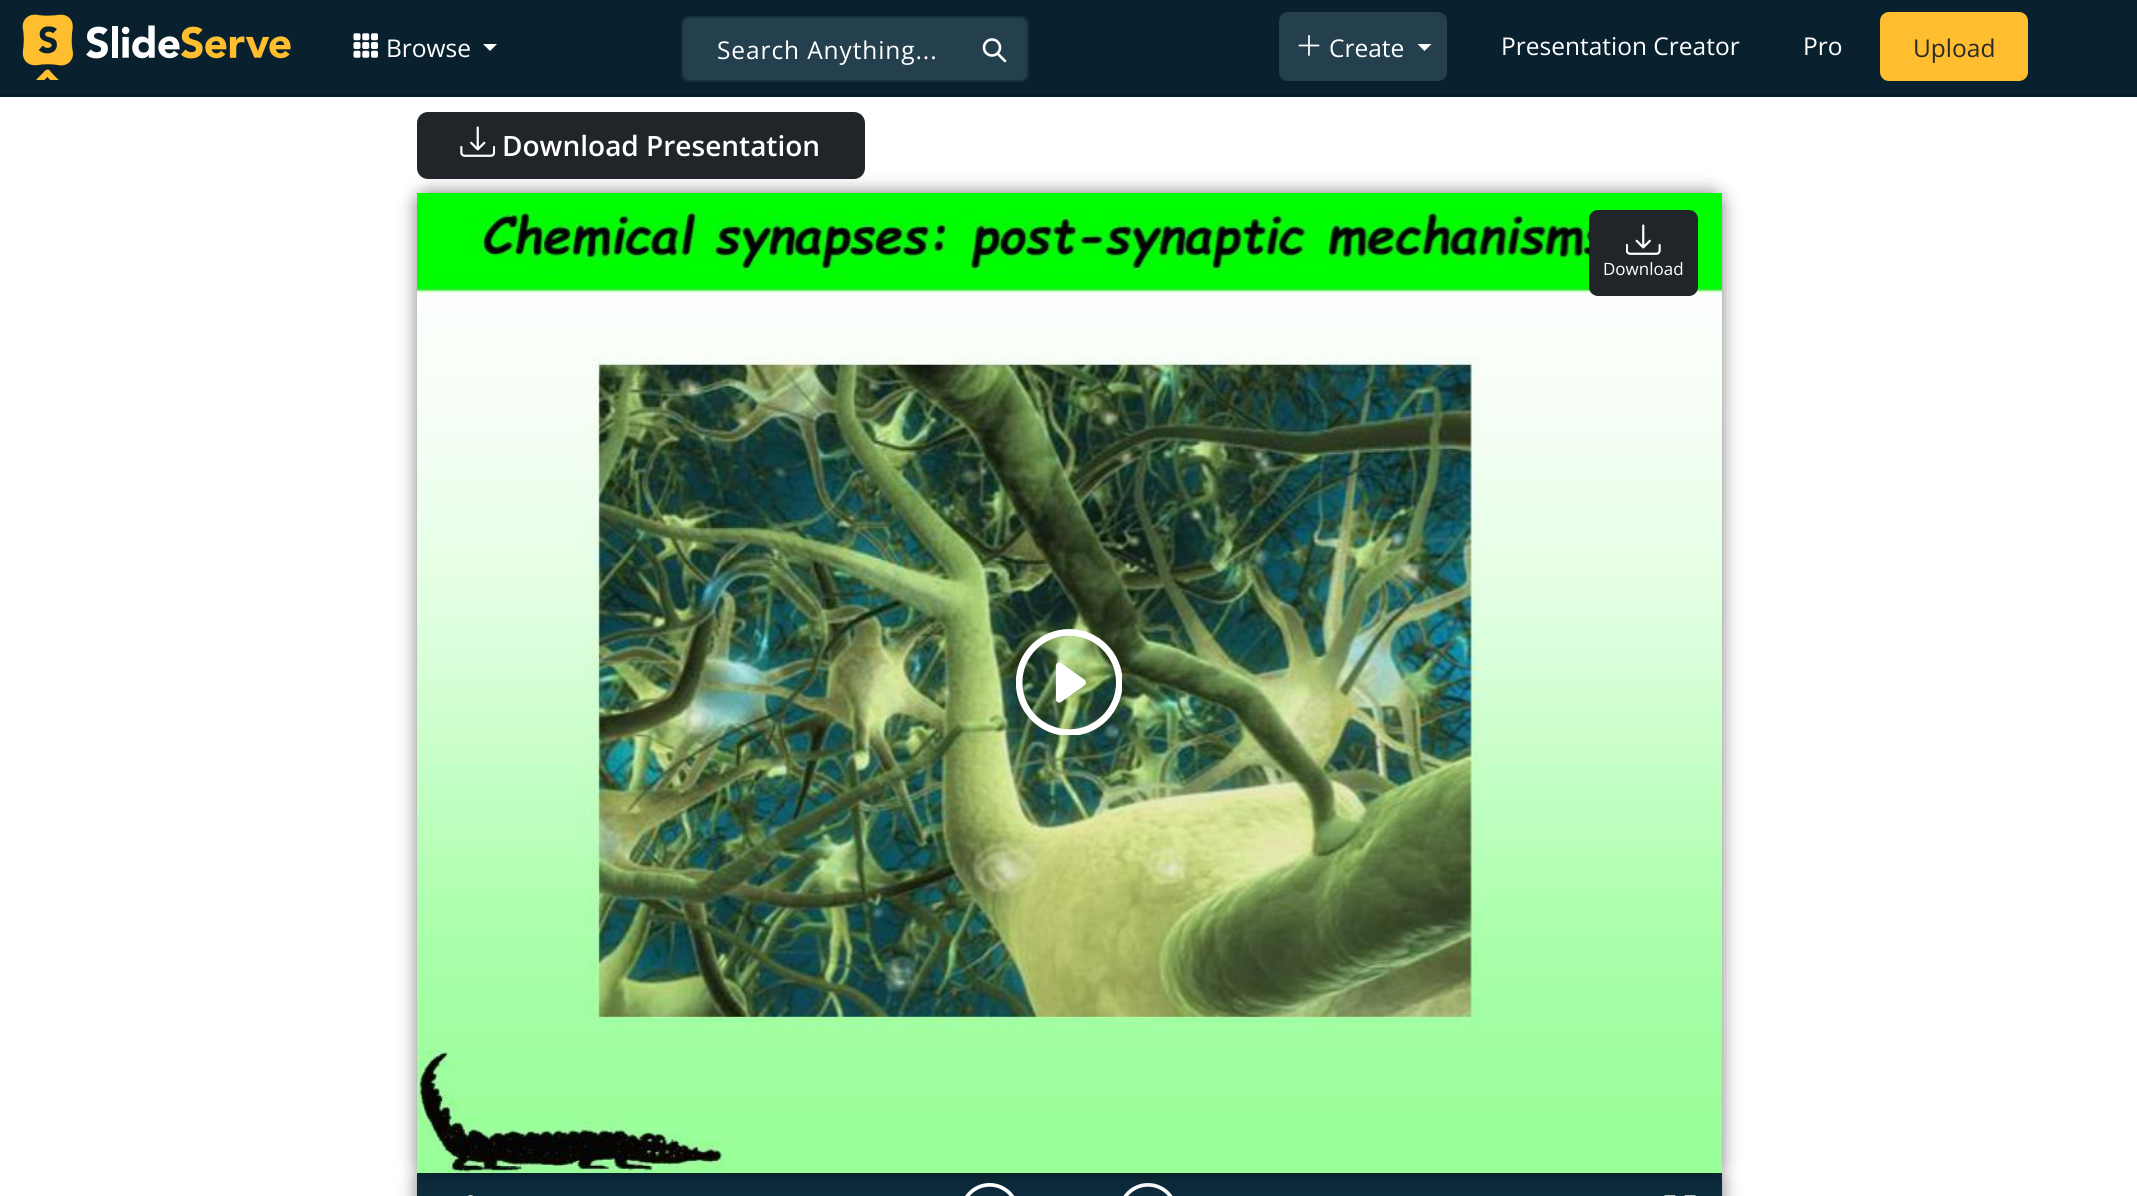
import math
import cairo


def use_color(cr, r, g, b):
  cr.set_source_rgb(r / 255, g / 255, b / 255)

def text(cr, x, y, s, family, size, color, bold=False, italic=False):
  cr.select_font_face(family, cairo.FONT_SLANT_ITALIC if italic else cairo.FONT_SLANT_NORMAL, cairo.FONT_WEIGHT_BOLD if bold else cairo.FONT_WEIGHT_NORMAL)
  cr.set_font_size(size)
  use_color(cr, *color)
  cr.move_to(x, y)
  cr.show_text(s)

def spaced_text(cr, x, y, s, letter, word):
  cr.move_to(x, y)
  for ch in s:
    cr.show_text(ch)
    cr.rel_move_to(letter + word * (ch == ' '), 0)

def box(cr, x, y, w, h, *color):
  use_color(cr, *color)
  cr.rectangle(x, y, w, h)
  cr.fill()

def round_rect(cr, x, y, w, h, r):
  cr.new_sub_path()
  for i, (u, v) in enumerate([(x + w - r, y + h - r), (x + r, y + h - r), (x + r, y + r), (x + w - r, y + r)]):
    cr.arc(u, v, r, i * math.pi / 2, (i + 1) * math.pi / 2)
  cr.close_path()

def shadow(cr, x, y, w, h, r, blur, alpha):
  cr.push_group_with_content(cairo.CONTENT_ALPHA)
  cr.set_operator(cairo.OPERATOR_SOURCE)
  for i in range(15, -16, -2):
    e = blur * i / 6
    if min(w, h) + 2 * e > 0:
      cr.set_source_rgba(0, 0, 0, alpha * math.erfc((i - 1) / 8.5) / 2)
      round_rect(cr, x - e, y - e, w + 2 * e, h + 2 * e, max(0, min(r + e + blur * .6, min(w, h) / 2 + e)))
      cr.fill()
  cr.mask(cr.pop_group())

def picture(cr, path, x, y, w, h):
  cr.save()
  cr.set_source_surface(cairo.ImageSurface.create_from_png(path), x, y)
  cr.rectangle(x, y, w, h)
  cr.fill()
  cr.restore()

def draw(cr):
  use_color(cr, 255, 255, 255)
  cr.paint()
  box(cr, 0, 0, 2137, 95, 9, 33, 46)
  box(cr, 0, 95, 2137, 2, 6, 25, 36)
  picture(cr, "img_01.png", 22, 14, 269, 66)
  picture(cr, "img_02.png", 353, 33, 25, 25)
  use_color(cr, 255, 255, 255)
  cr.new_path()
  cr.move_to(483, 44)
  cr.line_to(497, 44)
  cr.line_to(490, 51)
  cr.close_path()
  cr.fill()
  use_color(cr, 36, 63, 78)
  round_rect(cr, 1280, 13, 166, 67, 8)
  cr.fill_preserve()
  cr.stroke()
  picture(cr, "img_03.png", 1298, 35, 22, 21)
  use_color(cr, 255, 255, 255)
  cr.new_path()
  cr.move_to(1417.5, 44)
  cr.line_to(1431.5, 44)
  cr.line_to(1424.5, 51)
  cr.close_path()
  cr.fill()
  use_color(cr, 255, 190, 47)
  round_rect(cr, 1881, 13, 146, 67, 8)
  cr.fill_preserve()
  cr.stroke()
  use_color(cr, 36, 63, 78)
  round_rect(cr, 681, 16, 348, 66, 9)
  cr.fill()
  cr.arc(992, 47.5, 8, 0, 2 * math.pi)
  use_color(cr, 255, 255, 255)
  cr.set_line_width(2.6)
  cr.stroke()
  cr.new_path()
  cr.move_to(1005, 61)
  cr.line_to(998, 54)
  cr.set_line_cap(cairo.LINE_CAP_ROUND)
  cr.set_line_join(cairo.LINE_JOIN_ROUND)
  cr.stroke()
  round_rect(cr, 682, 17, 346, 64, 8)
  use_color(cr, 21, 46, 64)
  cr.set_line_width(2)
  cr.set_line_cap(cairo.LINE_CAP_BUTT)
  cr.set_line_join(cairo.LINE_JOIN_MITER)
  cr.stroke()
  use_color(cr, 33, 37, 41)
  round_rect(cr, 418, 113, 446, 65, 10)
  cr.fill_preserve()
  cr.stroke()
  picture(cr, "img_04.png", 460, 126, 35, 31)
  use_color(cr, 0, 0, 0)
  shadow(cr, 417, 1173, 1305, 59, 9, 9, 0.5)
  box(cr, 417, 1173, 1305, 23, 12, 43, 61)
  picture(cr, "img_08.png", 468, 1195, 6, 1)
  picture(cr, "img_10.png", 1123, 1183, 50, 13)
  picture(cr, "img_11.png", 1664, 1195, 32, 1)
  use_color(cr, 0, 0, 0)
  shadow(cr, 417, 193, 1305, 980, 12, 9, 0.5)
  picture(cr, "img_05.png", 417, 193, 1305, 980)
  use_color(cr, 33, 37, 41)
  round_rect(cr, 1590, 211, 107, 84, 8)
  cr.fill_preserve()
  cr.stroke()
  picture(cr, "img_06.png", 1626, 224, 35, 31)
  picture(cr, "img_07.png", 1016, 629, 106, 106)
  picture(cr, "img_09.png", 965, 1183, 50, 13)
  text(cr, 386, 57, "Browse", "Open Sans", 24.5, (255, 255, 255))
  text(cr, 1329, 57, "Create", "Open Sans", 24.5, (255, 255, 255))
  text(cr, 1501, 55, "Presentation Creator", "Open Sans", 24.5, (255, 255, 255))
  text(cr, 1803, 55, "Pro", "Open Sans", 24.5, (255, 255, 255))
  text(cr, 1913, 57, "Upload", "Open Sans", 24.5, (43, 42, 42))
  use_color(cr, 255, 255, 255)
  spaced_text(cr, 717, 59, "Search Anything...", 0.9, 0)
  text(cr, 502, 156, "Download Presentation", "Open Sans SemiBold", 28, (255, 255, 255))
  text(cr, 1603, 275, "Download", "Open Sans", 17, (255, 255, 255))


surface = cairo.ImageSurface(cairo.FORMAT_RGB24, 2137, 1196)
cr = cairo.Context(surface)
options = cairo.FontOptions()
options.set_hint_metrics(cairo.HINT_METRICS_OFF)
options.set_hint_style(cairo.HINT_STYLE_NONE)
cr.set_font_options(options)
cr.set_miter_limit(4)
draw(cr)
surface.write_to_png("out.png")
